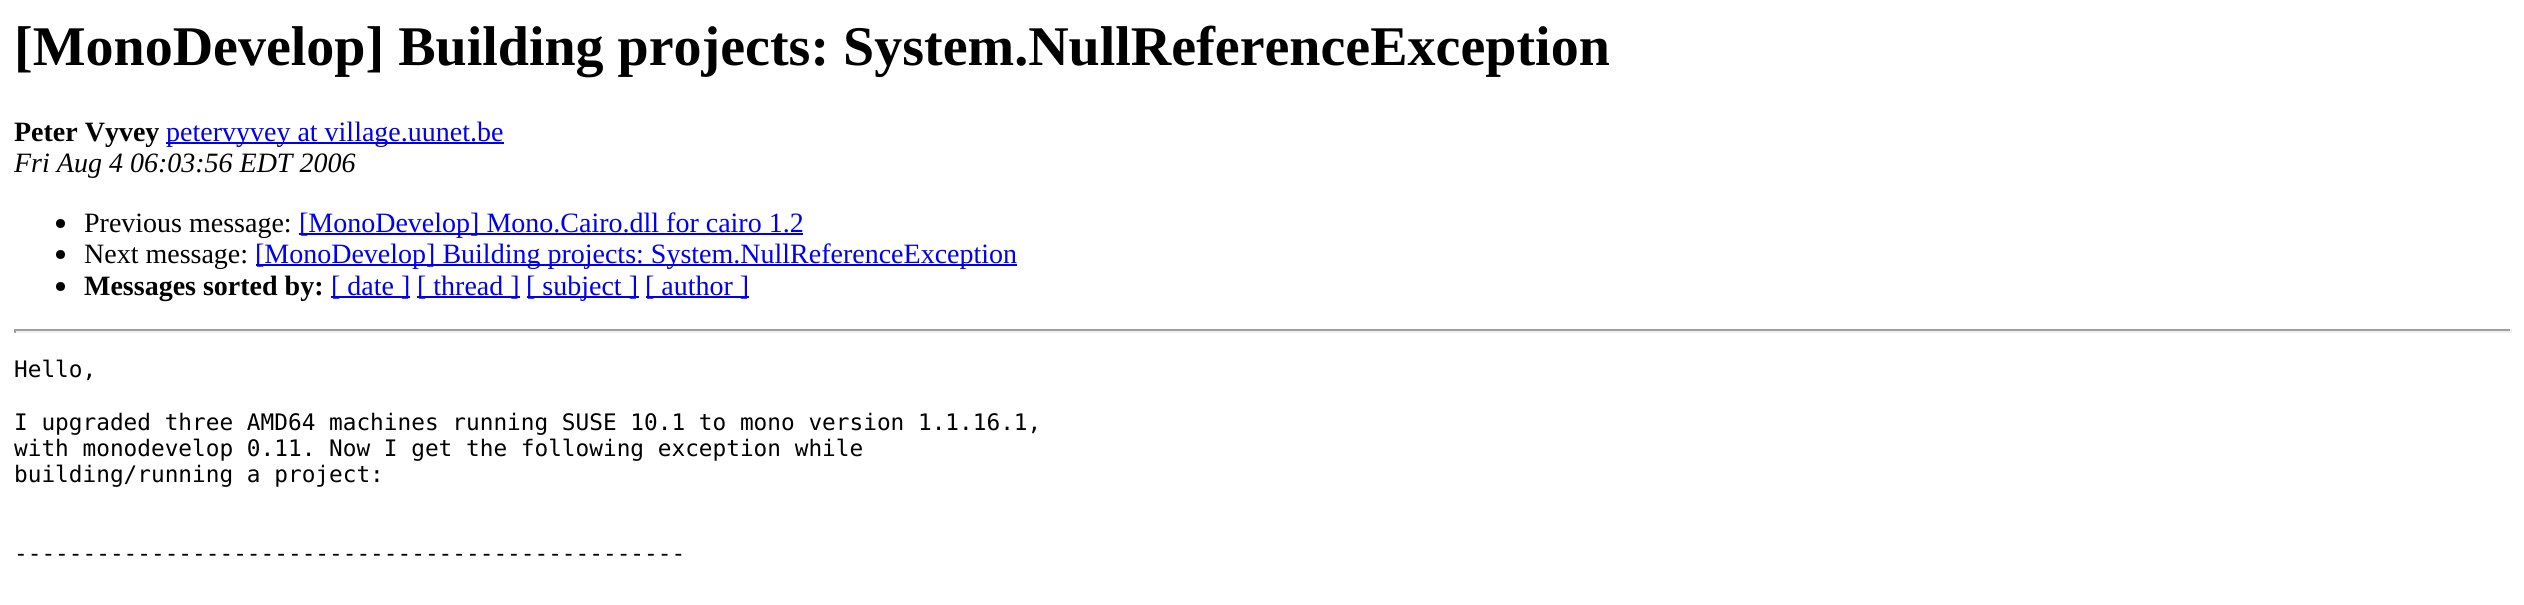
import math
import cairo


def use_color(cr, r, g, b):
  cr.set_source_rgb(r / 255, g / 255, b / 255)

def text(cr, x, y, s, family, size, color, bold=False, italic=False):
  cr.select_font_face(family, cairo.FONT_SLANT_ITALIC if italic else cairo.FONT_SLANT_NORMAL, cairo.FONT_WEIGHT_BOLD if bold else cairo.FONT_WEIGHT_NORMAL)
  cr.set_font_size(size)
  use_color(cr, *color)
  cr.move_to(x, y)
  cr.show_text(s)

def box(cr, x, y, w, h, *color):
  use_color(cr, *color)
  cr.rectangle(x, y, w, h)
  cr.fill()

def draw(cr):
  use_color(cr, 255, 255, 255)
  cr.paint()
  box(cr, 166, 142, 338, 2, 0, 0, 238)
  use_color(cr, 0, 0, 0)
  cr.arc(60.5, 223.5, 4.5, 0, 2 * math.pi)
  cr.fill()
  box(cr, 299, 233, 504, 2, 0, 0, 238)
  use_color(cr, 0, 0, 0)
  cr.arc(60.5, 254.5, 4.5, 0, 2 * math.pi)
  cr.fill()
  box(cr, 256, 264, 761, 2, 0, 0, 238)
  use_color(cr, 0, 0, 0)
  cr.arc(60.5, 286.5, 4.5, 0, 2 * math.pi)
  cr.fill()
  box(cr, 331, 296, 79, 2, 0, 0, 238)
  box(cr, 417, 296, 103, 2, 0, 0, 238)
  box(cr, 527, 296, 112, 2, 0, 0, 238)
  box(cr, 646, 296, 103, 2, 0, 0, 238)
  box(cr, 14, 329, 2497, 2, 159, 159, 159)
  box(cr, 2510, 329, 2, 4, 238, 238, 238)
  box(cr, 14, 331, 2497, 2, 238, 238, 238)
  box(cr, 14, 329, 2, 4, 159, 159, 159)
  text(cr, 14, 65, "[MonoDevelop] Building projects: System.NullReferenceException", "Liberation Serif", 56, (0, 0, 0), bold=True)
  text(cr, 14, 141, "Peter Vyvey", "Liberation Serif", 28, (0, 0, 0), bold=True)
  text(cr, 166, 141, "petervyvey at village.uunet.be", "Liberation Serif", 28, (0, 0, 238))
  text(cr, 14, 172, "Fri Aug 4 06:03:56 EDT 2006", "Liberation Serif", 28, (0, 0, 0), italic=True)
  text(cr, 84, 232, "Previous message:", "Liberation Serif", 28, (0, 0, 0))
  text(cr, 299, 232, "[MonoDevelop] Mono.Cairo.dll for cairo 1.2", "Liberation Serif", 28, (0, 0, 238))
  text(cr, 84, 263, "Next message:", "Liberation Serif", 28, (0, 0, 0))
  text(cr, 255, 263, "[MonoDevelop] Building projects: System.NullReferenceException", "Liberation Serif", 28, (0, 0, 238))
  text(cr, 84, 295, "Messages sorted by:", "Liberation Serif", 28, (0, 0, 0), bold=True)
  text(cr, 331, 295, "[ date ]", "Liberation Serif", 28, (0, 0, 238))
  text(cr, 417, 295, "[ thread ]", "Liberation Serif", 28, (0, 0, 238))
  text(cr, 526, 295, "[ subject ]", "Liberation Serif", 28, (0, 0, 238))
  text(cr, 645, 295, "[ author ]", "Liberation Serif", 28, (0, 0, 238))
  text(cr, 14, 377, "Hello,", "DejaVu Sans Mono", 22.75, (0, 0, 0))
  text(cr, 14, 430, "I upgraded three AMD64 machines running SUSE 10.1 to mono version 1.1.16.1,", "DejaVu Sans Mono", 22.75, (0, 0, 0))
  text(cr, 14, 456, "with monodevelop 0.11. Now I get the following exception while", "DejaVu Sans Mono", 22.75, (0, 0, 0))
  text(cr, 14, 482, "building/running a project:", "DejaVu Sans Mono", 22.75, (0, 0, 0))
  text(cr, 14, 561, "-------------------------------------------------", "DejaVu Sans Mono", 22.75, (0, 0, 0))


surface = cairo.ImageSurface(cairo.FORMAT_RGB24, 2524, 605)
cr = cairo.Context(surface)
options = cairo.FontOptions()
options.set_hint_metrics(cairo.HINT_METRICS_OFF)
options.set_hint_style(cairo.HINT_STYLE_NONE)
cr.set_font_options(options)
cr.set_miter_limit(4)
draw(cr)
surface.write_to_png("out.png")
